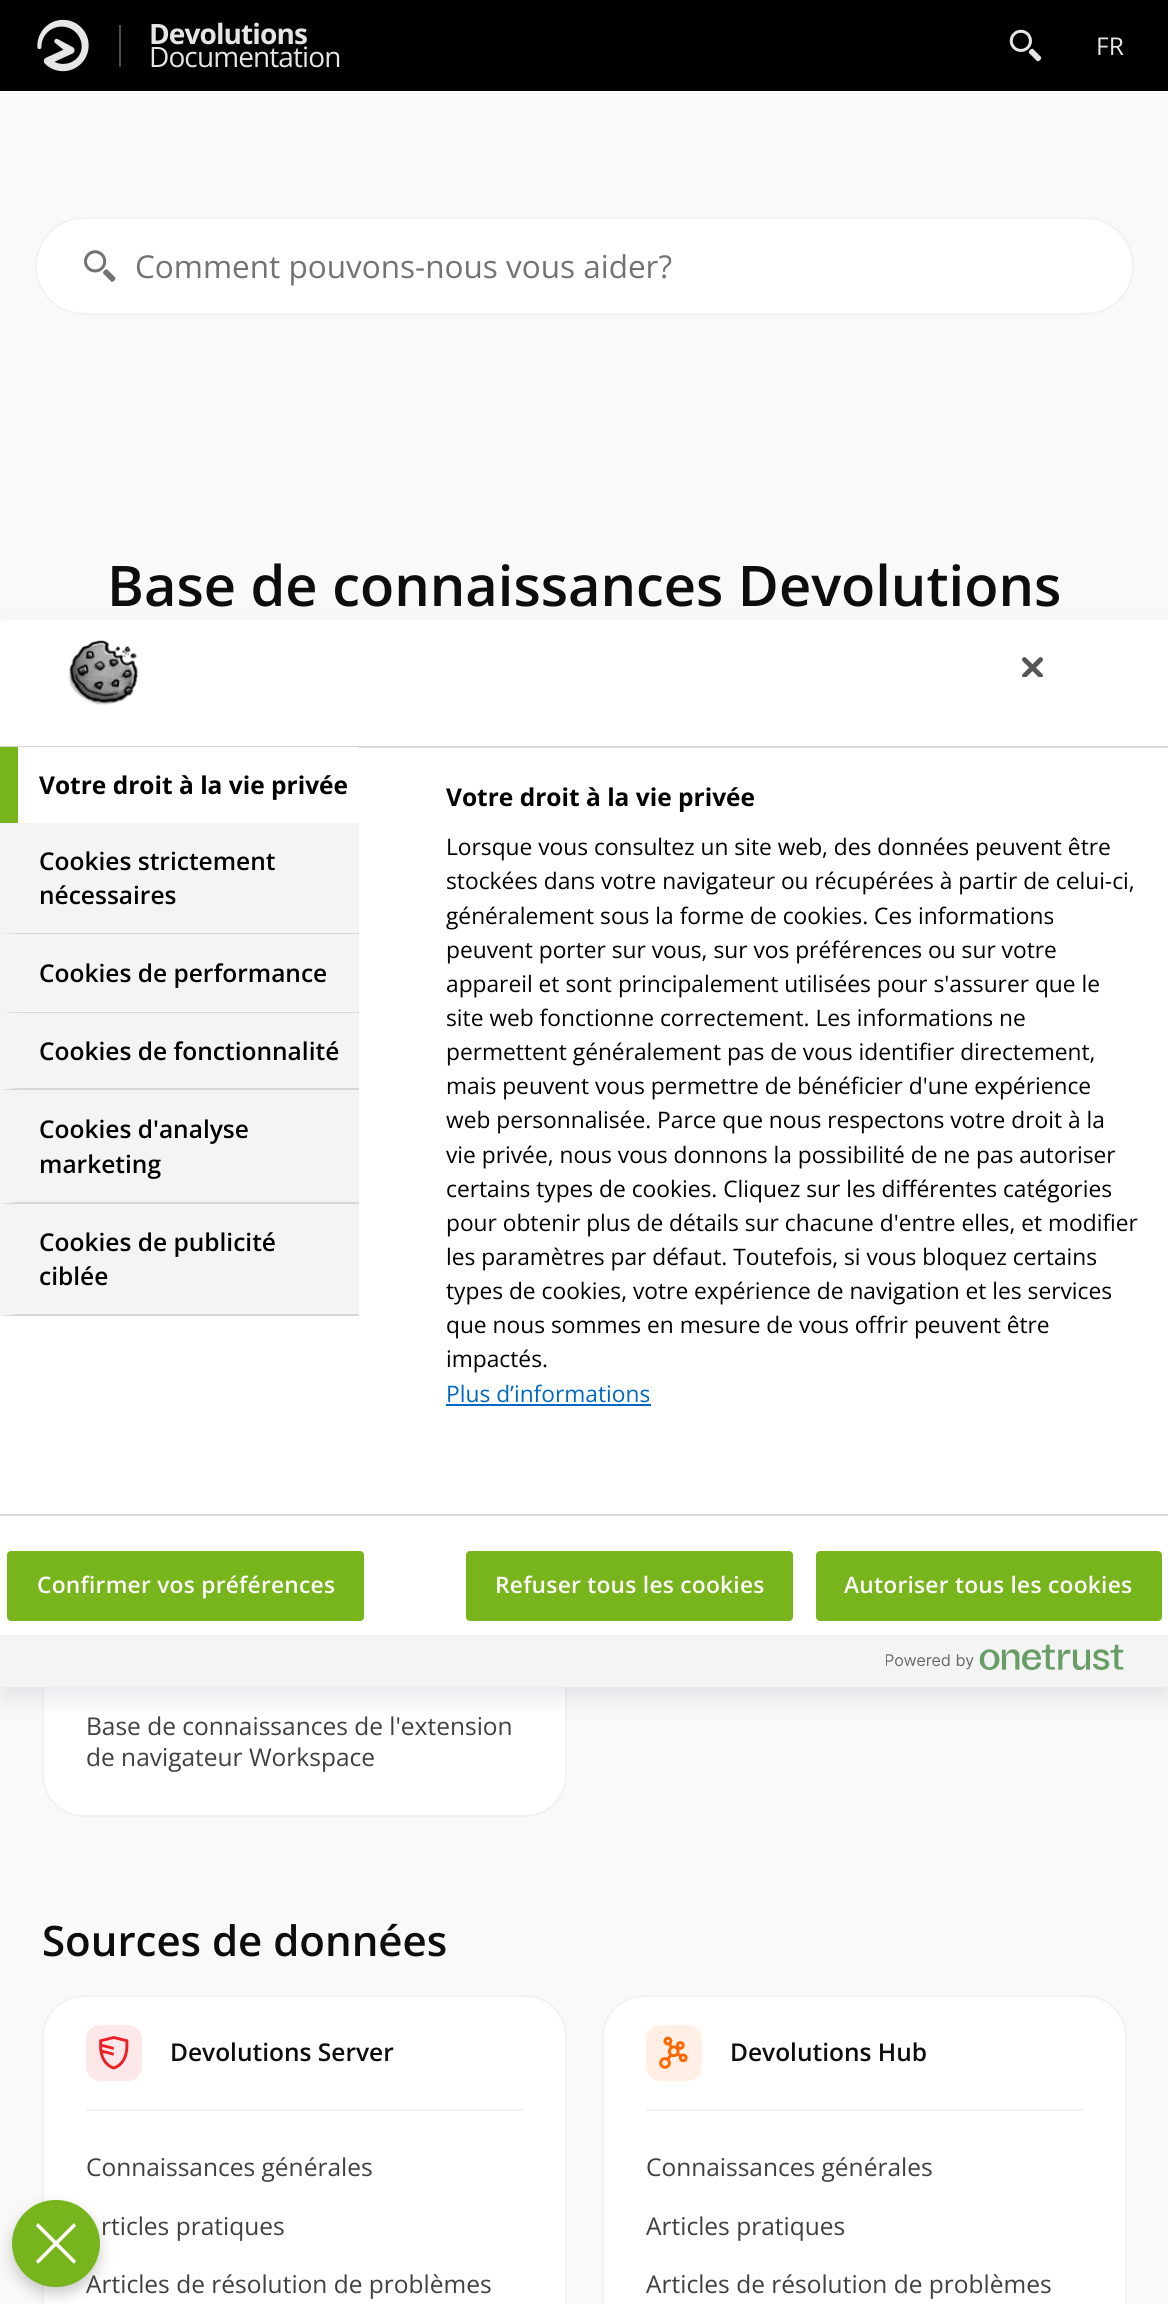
import math
import cairo


def use_color(cr, r, g, b):
  cr.set_source_rgb(r / 255, g / 255, b / 255)

def text(cr, x, y, s, family, size, color, bold=False, italic=False):
  cr.select_font_face(family, cairo.FONT_SLANT_ITALIC if italic else cairo.FONT_SLANT_NORMAL, cairo.FONT_WEIGHT_BOLD if bold else cairo.FONT_WEIGHT_NORMAL)
  cr.set_font_size(size)
  use_color(cr, *color)
  cr.move_to(x, y)
  cr.show_text(s)

def spaced_text(cr, x, y, s, letter, word):
  cr.move_to(x, y)
  for ch in s:
    cr.show_text(ch)
    cr.rel_move_to(letter + word * (ch == ' '), 0)

def box(cr, x, y, w, h, *color):
  use_color(cr, *color)
  cr.rectangle(x, y, w, h)
  cr.fill()

def round_rect(cr, x, y, w, h, r):
  cr.new_sub_path()
  for i, (u, v) in enumerate([(x + w - r, y + h - r), (x + r, y + h - r), (x + r, y + r), (x + w - r, y + r)]):
    cr.arc(u, v, r, i * math.pi / 2, (i + 1) * math.pi / 2)
  cr.close_path()

def shadow(cr, x, y, w, h, r, blur, alpha):
  cr.push_group_with_content(cairo.CONTENT_ALPHA)
  cr.set_operator(cairo.OPERATOR_SOURCE)
  for i in range(15, -16, -2):
    e = blur * i / 6
    if min(w, h) + 2 * e > 0:
      cr.set_source_rgba(0, 0, 0, alpha * math.erfc((i - 1) / 8.5) / 2)
      round_rect(cr, x - e, y - e, w + 2 * e, h + 2 * e, max(0, min(r + e + blur * .6, min(w, h) / 2 + e)))
      cr.fill()
  cr.mask(cr.pop_group())

def picture(cr, path, x, y, w, h):
  cr.save()
  cr.set_source_surface(cairo.ImageSurface.create_from_png(path), x, y)
  cr.rectangle(x, y, w, h)
  cr.fill()
  cr.restore()

def draw(cr):
  use_color(cr, 249, 249, 249)
  cr.paint()
  box(cr, 0, 0, 1168, 91, 0, 0, 0)
  picture(cr, "img_01.png", 37, 19, 52, 53)
  box(cr, 119, 25, 2, 42, 77, 77, 77)
  picture(cr, "img_02.png", 1009, 29, 33, 33)
  use_color(cr, 255, 255, 255)
  round_rect(cr, 36, 218, 1097, 96, 48)
  cr.fill_preserve()
  use_color(cr, 242, 242, 242)
  cr.stroke()
  picture(cr, "img_03.png", 84, 250, 32, 32)
  use_color(cr, 255, 255, 255)
  round_rect(cr, 43, 1406, 523, 410, 41)
  cr.fill_preserve()
  use_color(cr, 242, 242, 242)
  cr.stroke()
  use_color(cr, 255, 255, 255)
  round_rect(cr, 43, 1996, 523, 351, 41)
  cr.fill_preserve()
  use_color(cr, 242, 242, 242)
  cr.stroke()
  use_color(cr, 253, 232, 233)
  round_rect(cr, 86, 2025, 56, 56, 14)
  cr.fill()
  picture(cr, "img_04.png", 99, 2036, 30, 34)
  box(cr, 86, 2109, 437, 2, 242, 242, 242)
  use_color(cr, 255, 255, 255)
  round_rect(cr, 603, 1996, 523, 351, 41)
  cr.fill_preserve()
  use_color(cr, 242, 242, 242)
  cr.stroke()
  use_color(cr, 255, 239, 229)
  round_rect(cr, 646, 2025, 56, 56, 14)
  cr.fill()
  picture(cr, "img_05.png", 659, 2036, 29, 33)
  box(cr, 646, 2109, 437, 2, 242, 242, 242)
  use_color(cr, 50, 50, 93)
  shadow(cr, 0, 632, 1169, 1067, 4, 12, 0.1)
  use_color(cr, 255, 255, 255)
  round_rect(cr, 0, 620, 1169, 1067, 4)
  cr.fill()
  box(cr, 0, 746, 1168, 2, 216, 216, 216)
  picture(cr, "img_06.png", 68, 640, 70, 65)
  picture(cr, "img_07.png", 1022, 657, 21, 20)
  box(cr, 18, 747, 341, 1, 255, 255, 255)
  box(cr, 0, 747, 18, 76, 120, 180, 27)
  box(cr, 0, 823, 359, 493, 244, 244, 244)
  use_color(cr, 215, 215, 215)
  cr.new_path()
  cr.move_to(359, 934)
  cr.line_to(0, 934)
  cr.line_to(18, 933)
  cr.line_to(359, 933)
  cr.close_path()
  cr.fill()
  cr.new_path()
  cr.move_to(359, 1013)
  cr.line_to(0, 1013)
  cr.line_to(18, 1012)
  cr.line_to(359, 1012)
  cr.close_path()
  cr.fill()
  cr.new_path()
  cr.move_to(359, 1090)
  cr.line_to(0, 1090)
  cr.line_to(18, 1088)
  cr.line_to(359, 1088)
  cr.close_path()
  cr.fill()
  cr.new_path()
  cr.move_to(359, 1204)
  cr.line_to(0, 1204)
  cr.line_to(18, 1202)
  cr.line_to(359, 1202)
  cr.close_path()
  cr.fill()
  cr.new_path()
  cr.move_to(359, 1316)
  cr.line_to(0, 1316)
  cr.line_to(18, 1314)
  cr.line_to(359, 1314)
  cr.close_path()
  cr.fill()
  box(cr, 446, 1404, 205, 2, 0, 104, 195)
  box(cr, 0, 1514, 1168, 2, 216, 216, 216)
  use_color(cr, 120, 180, 27)
  round_rect(cr, 8, 1552, 355, 68, 3)
  cr.fill_preserve()
  cr.stroke()
  round_rect(cr, 467, 1552, 325, 68, 3)
  cr.fill_preserve()
  cr.stroke()
  round_rect(cr, 817, 1552, 344, 68, 3)
  cr.fill_preserve()
  cr.stroke()
  use_color(cr, 244, 244, 244)
  cr.new_path()
  cr.move_to(0, 1635)
  cr.line_to(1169, 1635)
  cr.line_to(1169, 1683)
  cr.curve_to(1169, 1685, 1167, 1687, 1165, 1687)
  cr.line_to(4, 1687)
  cr.curve_to(2, 1687, 0, 1685, 0, 1683)
  cr.close_path()
  cr.fill()
  picture(cr, "img_08.png", 886, 1644, 238, 26)
  use_color(cr, 0, 0, 0)
  shadow(cr, 12, 2207, 88, 87, 43.5, 7, 0.2)
  cr.select_font_face("Open Sans", cairo.FONT_SLANT_NORMAL, cairo.FONT_WEIGHT_BOLD)
  cr.set_font_size(28)
  use_color(cr, 230, 230, 230)
  spaced_text(cr, 149, 44, "Devolutions", -0.9, 0)
  cr.select_font_face("Open Sans")
  spaced_text(cr, 149, 67, "Documentation", -0.9, 0)
  text(cr, 1096, 55, "FR", "Open Sans", 24.5, (230, 230, 230))
  text(cr, 135, 278, "Comment pouvons-nous vous aider?", "Open Sans", 31.5, (115, 115, 115))
  text(cr, 107, 606, "Base de connaissances Devolutions", "Open Sans SemiBold", 56, (13, 13, 13))
  text(cr, 86, 1735, "Base de connaissances de l'extension", "Open Sans", 24.5, (64, 64, 64))
  text(cr, 86, 1766, "de navigateur Workspace", "Open Sans", 24.5, (64, 64, 64))
  text(cr, 42, 1956, "Sources de données", "Open Sans SemiBold", 42, (13, 13, 13))
  text(cr, 170, 2061, "Devolutions Server", "Open Sans SemiBold", 24.5, (13, 13, 13))
  text(cr, 86, 2176, "Connaissances générales", "Open Sans", 24.5, (64, 64, 64))
  text(cr, 101, 2235, "rticles pratiques", "Open Sans", 24.5, (64, 64, 64))
  text(cr, 86, 2293, "Articles de résolution de problèmes", "Open Sans", 24.5, (64, 64, 64))
  text(cr, 730, 2061, "Devolutions Hub", "Open Sans SemiBold", 24.5, (13, 13, 13))
  text(cr, 646, 2176, "Connaissances générales", "Open Sans", 24.5, (64, 64, 64))
  text(cr, 646, 2235, "Articles pratiques", "Open Sans", 24.5, (64, 64, 64))
  text(cr, 646, 2293, "Articles de résolution de problèmes", "Open Sans", 24.5, (64, 64, 64))
  text(cr, 39, 794, "Votre droit à la vie privée", "Open Sans", 24.5, (0, 0, 0), bold=True)
  text(cr, 39, 870, "Cookies strictement", "Open Sans SemiBold", 24.5, (0, 0, 0))
  text(cr, 39, 904, "nécessaires", "Open Sans SemiBold", 24.5, (0, 0, 0))
  text(cr, 39, 982, "Cookies de performance", "Open Sans SemiBold", 24.5, (0, 0, 0))
  text(cr, 39, 1060, "Cookies de fonctionnalité", "Open Sans SemiBold", 24.5, (0, 0, 0))
  text(cr, 39, 1138, "Cookies d'analyse", "Open Sans SemiBold", 24.5, (0, 0, 0))
  text(cr, 39, 1173, "marketing", "Open Sans SemiBold", 24.5, (0, 0, 0))
  text(cr, 39, 1251, "Cookies de publicité", "Open Sans SemiBold", 24.5, (0, 0, 0))
  text(cr, 39, 1285, "ciblée", "Open Sans SemiBold", 24.5, (0, 0, 0))
  text(cr, 446, 806, "Votre droit à la vie privée", "Open Sans", 24.5, (0, 0, 0), bold=True)
  text(cr, 446, 855, "Lorsque vous consultez un site web, des données peuvent être", "Open Sans", 22.75, (0, 0, 0))
  text(cr, 446, 889, "stockées dans votre navigateur ou récupérées à partir de celui-ci,", "Open Sans", 22.75, (0, 0, 0))
  text(cr, 446, 924, "généralement sous la forme de cookies. Ces informations", "Open Sans", 22.75, (0, 0, 0))
  text(cr, 446, 958, "peuvent porter sur vous, sur vos préférences ou sur votre", "Open Sans", 22.75, (0, 0, 0))
  text(cr, 446, 992, "appareil et sont principalement utilisées pour s'assurer que le", "Open Sans", 22.75, (0, 0, 0))
  text(cr, 446, 1026, "site web fonctionne correctement. Les informations ne", "Open Sans", 22.75, (0, 0, 0))
  text(cr, 446, 1060, "permettent généralement pas de vous identifier directement,", "Open Sans", 22.75, (0, 0, 0))
  text(cr, 446, 1094, "mais peuvent vous permettre de bénéficier d'une expérience", "Open Sans", 22.75, (0, 0, 0))
  text(cr, 446, 1128, "web personnalisée. Parce que nous respectons votre droit à la", "Open Sans", 22.75, (0, 0, 0))
  text(cr, 446, 1163, "vie privée, nous vous donnons la possibilité de ne pas autoriser", "Open Sans", 22.75, (0, 0, 0))
  text(cr, 446, 1197, "certains types de cookies. Cliquez sur les différentes catégories", "Open Sans", 22.75, (0, 0, 0))
  text(cr, 446, 1231, "pour obtenir plus de détails sur chacune d'entre elles, et modifier", "Open Sans", 22.75, (0, 0, 0))
  text(cr, 446, 1265, "les paramètres par défaut. Toutefois, si vous bloquez certains", "Open Sans", 22.75, (0, 0, 0))
  text(cr, 446, 1299, "types de cookies, votre expérience de navigation et les services", "Open Sans", 22.75, (0, 0, 0))
  text(cr, 446, 1333, "que nous sommes en mesure de vous offrir peuvent être", "Open Sans", 22.75, (0, 0, 0))
  text(cr, 446, 1367, "impactés.", "Open Sans", 22.75, (0, 0, 0))
  text(cr, 446, 1402, "Plus d’informations", "Open Sans", 22.75, (0, 104, 195))
  cr.select_font_face("Open Sans SemiBold")
  use_color(cr, 255, 255, 255)
  spaced_text(cr, 37, 1593, "Confirmer vos préférences", 0.25, 0)
  spaced_text(cr, 495, 1593, "Refuser tous les cookies", 0.25, 0)
  spaced_text(cr, 844, 1593, "Autoriser tous les cookies", 0.25, 0)
  use_color(cr, 120, 180, 27)
  round_rect(cr, 12, 2200, 88, 87, 43.5)
  cr.fill()
  use_color(cr, 255, 255, 255)
  cr.new_path()
  cr.move_to(36, 2226)
  cr.line_to(74, 2264)
  cr.line_to(76, 2261)
  cr.line_to(38, 2223)
  cr.close_path()
  cr.fill()
  cr.new_path()
  cr.move_to(76, 2226)
  cr.line_to(38, 2264)
  cr.line_to(36, 2261)
  cr.line_to(74, 2223)
  cr.close_path()
  cr.fill()


surface = cairo.ImageSurface(cairo.FORMAT_RGB24, 1168, 2304)
cr = cairo.Context(surface)
options = cairo.FontOptions()
options.set_hint_metrics(cairo.HINT_METRICS_OFF)
options.set_hint_style(cairo.HINT_STYLE_NONE)
cr.set_font_options(options)
cr.set_miter_limit(4)
draw(cr)
surface.write_to_png("out.png")
